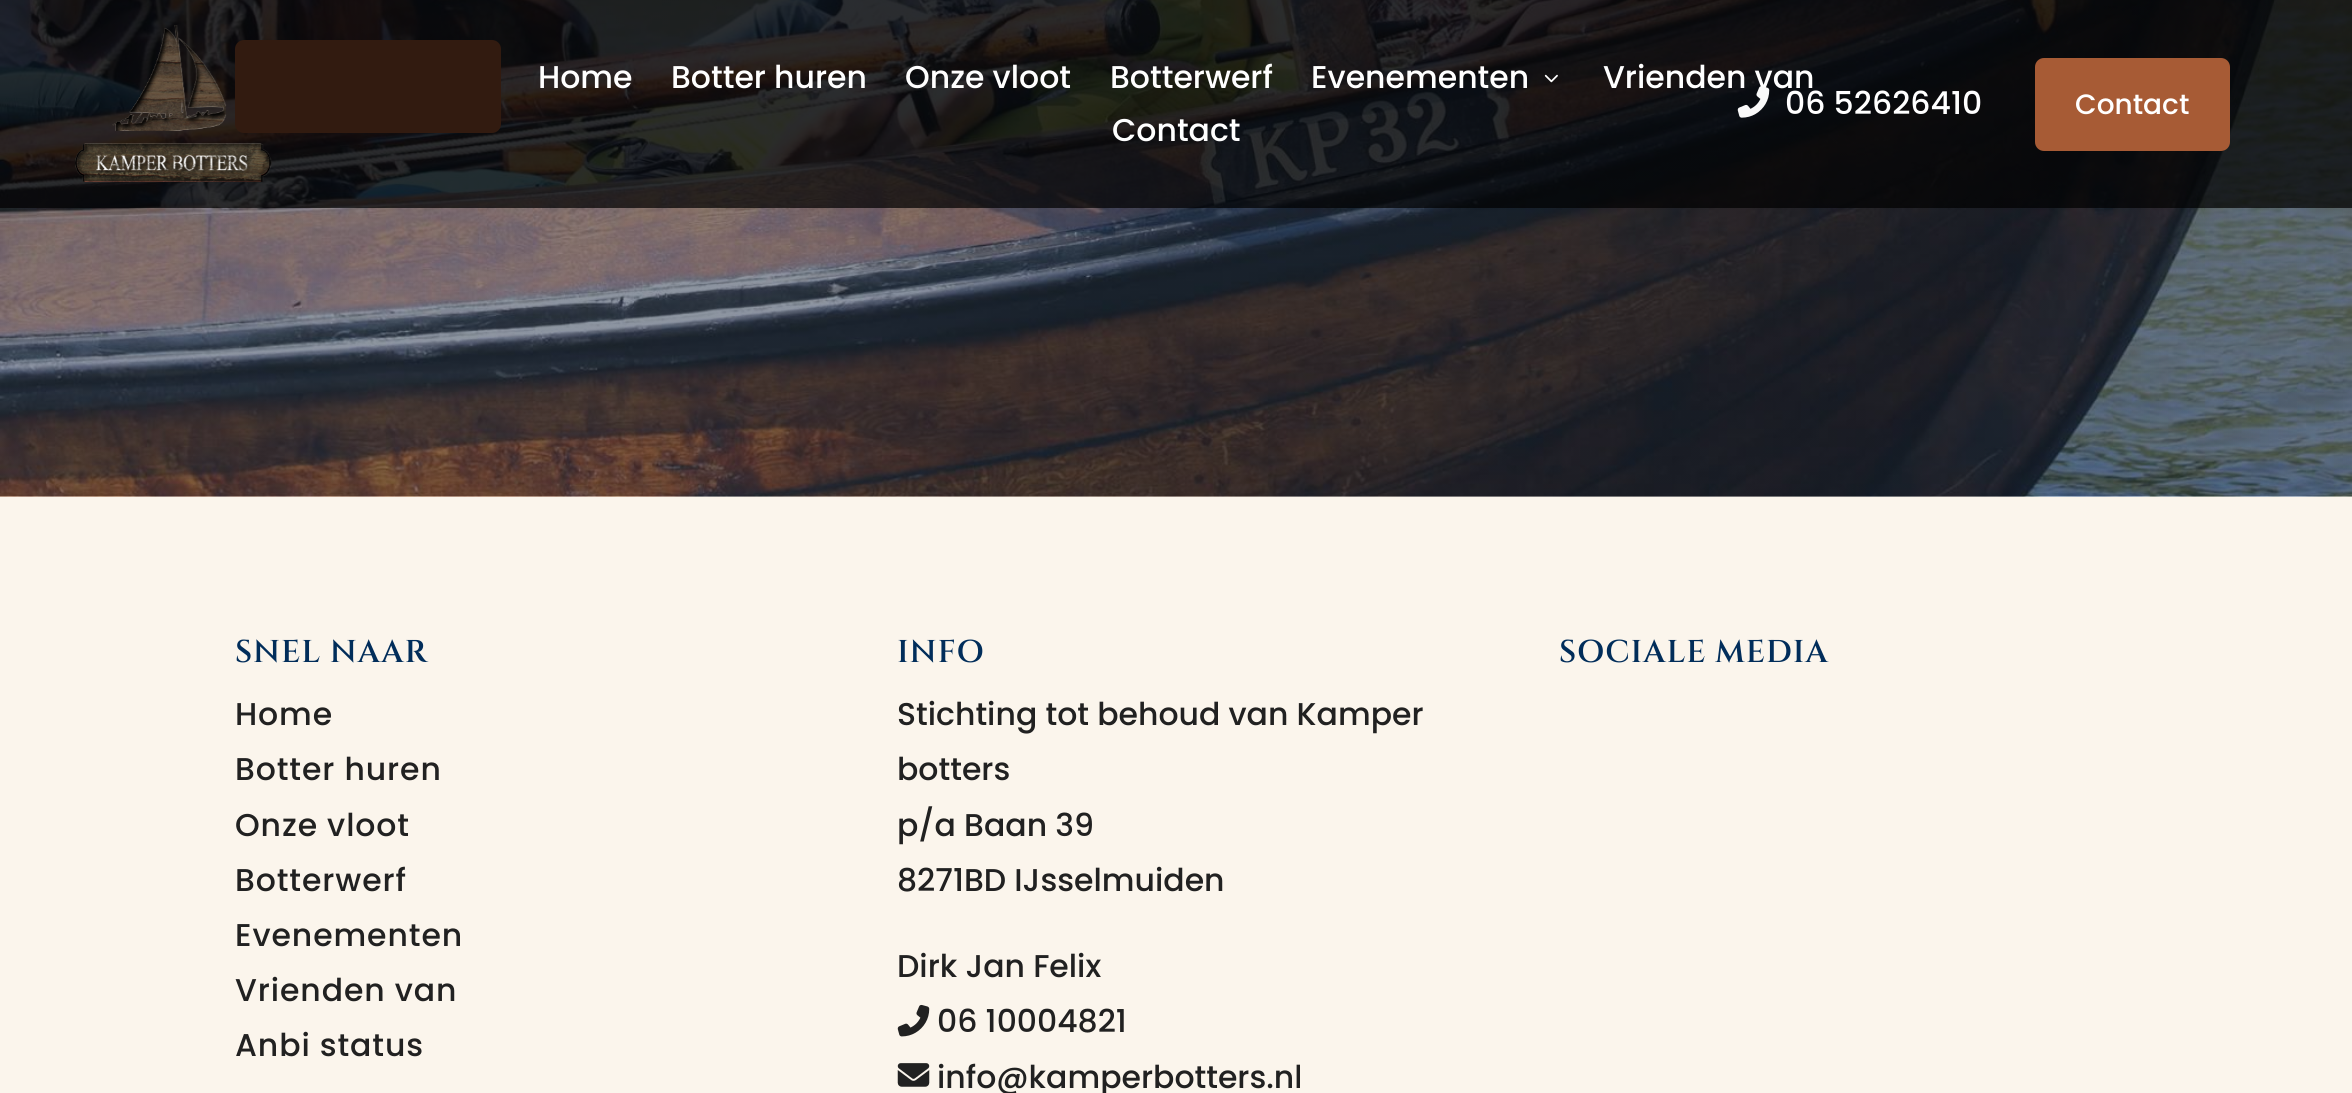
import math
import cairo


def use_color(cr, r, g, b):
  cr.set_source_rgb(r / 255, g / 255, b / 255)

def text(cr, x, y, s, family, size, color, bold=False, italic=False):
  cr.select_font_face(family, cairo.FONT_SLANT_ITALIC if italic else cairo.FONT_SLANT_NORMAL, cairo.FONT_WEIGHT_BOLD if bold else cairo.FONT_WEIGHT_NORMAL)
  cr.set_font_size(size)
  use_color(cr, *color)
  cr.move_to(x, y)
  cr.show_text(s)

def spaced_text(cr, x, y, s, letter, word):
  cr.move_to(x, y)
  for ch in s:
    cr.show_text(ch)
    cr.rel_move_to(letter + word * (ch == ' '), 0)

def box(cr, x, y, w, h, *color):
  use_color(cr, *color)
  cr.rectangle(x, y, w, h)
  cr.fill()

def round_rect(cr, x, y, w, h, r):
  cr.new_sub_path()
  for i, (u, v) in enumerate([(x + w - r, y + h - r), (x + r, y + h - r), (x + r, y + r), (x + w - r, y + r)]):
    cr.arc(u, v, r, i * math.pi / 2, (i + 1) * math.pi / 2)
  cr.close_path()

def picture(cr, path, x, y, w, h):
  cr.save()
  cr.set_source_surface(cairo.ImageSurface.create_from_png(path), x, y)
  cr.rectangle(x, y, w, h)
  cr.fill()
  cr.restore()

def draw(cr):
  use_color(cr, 255, 255, 255)
  cr.paint()
  picture(cr, "img_04.png", 0, 0, 2352, 497)
  use_color(cr, 167, 91, 53)
  round_rect(cr, 235, 40, 266, 93, 9)
  cr.fill()
  cr.set_source_rgba(0, 0, 0, 0.7)
  cr.rectangle(0, 0, 2352, 208)
  cr.fill()
  picture(cr, "img_01.png", 75, 25, 197, 157)
  picture(cr, "img_02.png", 1544, 74, 14, 9)
  use_color(cr, 167, 91, 53)
  round_rect(cr, 2037.5, 60.5, 190, 88, 6.5)
  cr.fill_preserve()
  cr.set_line_width(5)
  cr.stroke()
  box(cr, 0, 497, 2352, 596, 251, 245, 236)
  picture(cr, "img_05.png", 897, 1004, 33, 33)
  picture(cr, "img_06.png", 897, 1063, 33, 24)
  text(cr, 538, 88, "Home", "Poppins Medium", 31.5, (255, 255, 255))
  text(cr, 671, 88, "Botter huren", "Poppins Medium", 31.5, (255, 255, 255))
  text(cr, 905, 88, "Onze vloot", "Poppins Medium", 31.5, (255, 255, 255))
  text(cr, 1110, 88, "Botterwerf", "Poppins Medium", 31.5, (255, 255, 255))
  text(cr, 1311, 88, "Evenementen", "Poppins Medium", 31.5, (255, 255, 255))
  text(cr, 1603, 88, "Vrienden van", "Poppins Medium", 31.5, (255, 255, 255))
  text(cr, 1112, 141, "Contact", "Poppins Medium", 31.5, (255, 255, 255))
  picture(cr, "img_03.png", 1737, 86, 33, 32)
  text(cr, 1785, 114, "06 52626410", "Poppins Medium", 31.5, (255, 255, 255))
  text(cr, 2075, 114, "Contact", "Poppins Medium", 28, (255, 255, 255))
  cr.select_font_face("Cinzel SemiBold")
  cr.set_font_size(31.5)
  use_color(cr, 1, 45, 90)
  spaced_text(cr, 235, 662, "SNEL NAAR", 0.9, 0)
  cr.select_font_face("Poppins Medium")
  use_color(cr, 33, 33, 33)
  spaced_text(cr, 235, 725, "Home", 0.9, 0)
  spaced_text(cr, 235, 780, "Botter huren", 0.9, 0)
  spaced_text(cr, 235, 836, "Onze vloot", 0.9, 0)
  spaced_text(cr, 235, 891, "Botterwerf", 0.9, 0)
  spaced_text(cr, 235, 946, "Evenementen", 0.9, 0)
  spaced_text(cr, 235, 1001, "Vrienden van", 0.9, 0)
  spaced_text(cr, 235, 1056, "Anbi status", 0.9, 0)
  cr.select_font_face("Cinzel SemiBold")
  use_color(cr, 1, 45, 90)
  spaced_text(cr, 897, 662, "INFO", 0.9, 0)
  text(cr, 897, 725, "Stichting tot behoud van Kamper", "Poppins Medium", 31.5, (33, 33, 33))
  text(cr, 897, 780, "botters", "Poppins Medium", 31.5, (33, 33, 33))
  text(cr, 897, 836, "p/a Baan 39", "Poppins Medium", 31.5, (33, 33, 33))
  text(cr, 897, 891, "8271BD IJsselmuiden", "Poppins Medium", 31.5, (33, 33, 33))
  text(cr, 897, 977, "Dirk Jan Felix", "Poppins Medium", 31.5, (33, 33, 33))
  text(cr, 937, 1032, "06 10004821", "Poppins Medium", 31.5, (33, 33, 33))
  text(cr, 937, 1088, "info@kamperbotters.nl", "Poppins Medium", 31.5, (33, 33, 33))
  cr.select_font_face("Cinzel SemiBold")
  use_color(cr, 1, 45, 90)
  spaced_text(cr, 1559, 662, "SOCIALE MEDIA", 0.9, 0)


surface = cairo.ImageSurface(cairo.FORMAT_RGB24, 2352, 1093)
cr = cairo.Context(surface)
options = cairo.FontOptions()
options.set_hint_metrics(cairo.HINT_METRICS_OFF)
options.set_hint_style(cairo.HINT_STYLE_NONE)
cr.set_font_options(options)
cr.set_miter_limit(4)
draw(cr)
surface.write_to_png("out.png")
